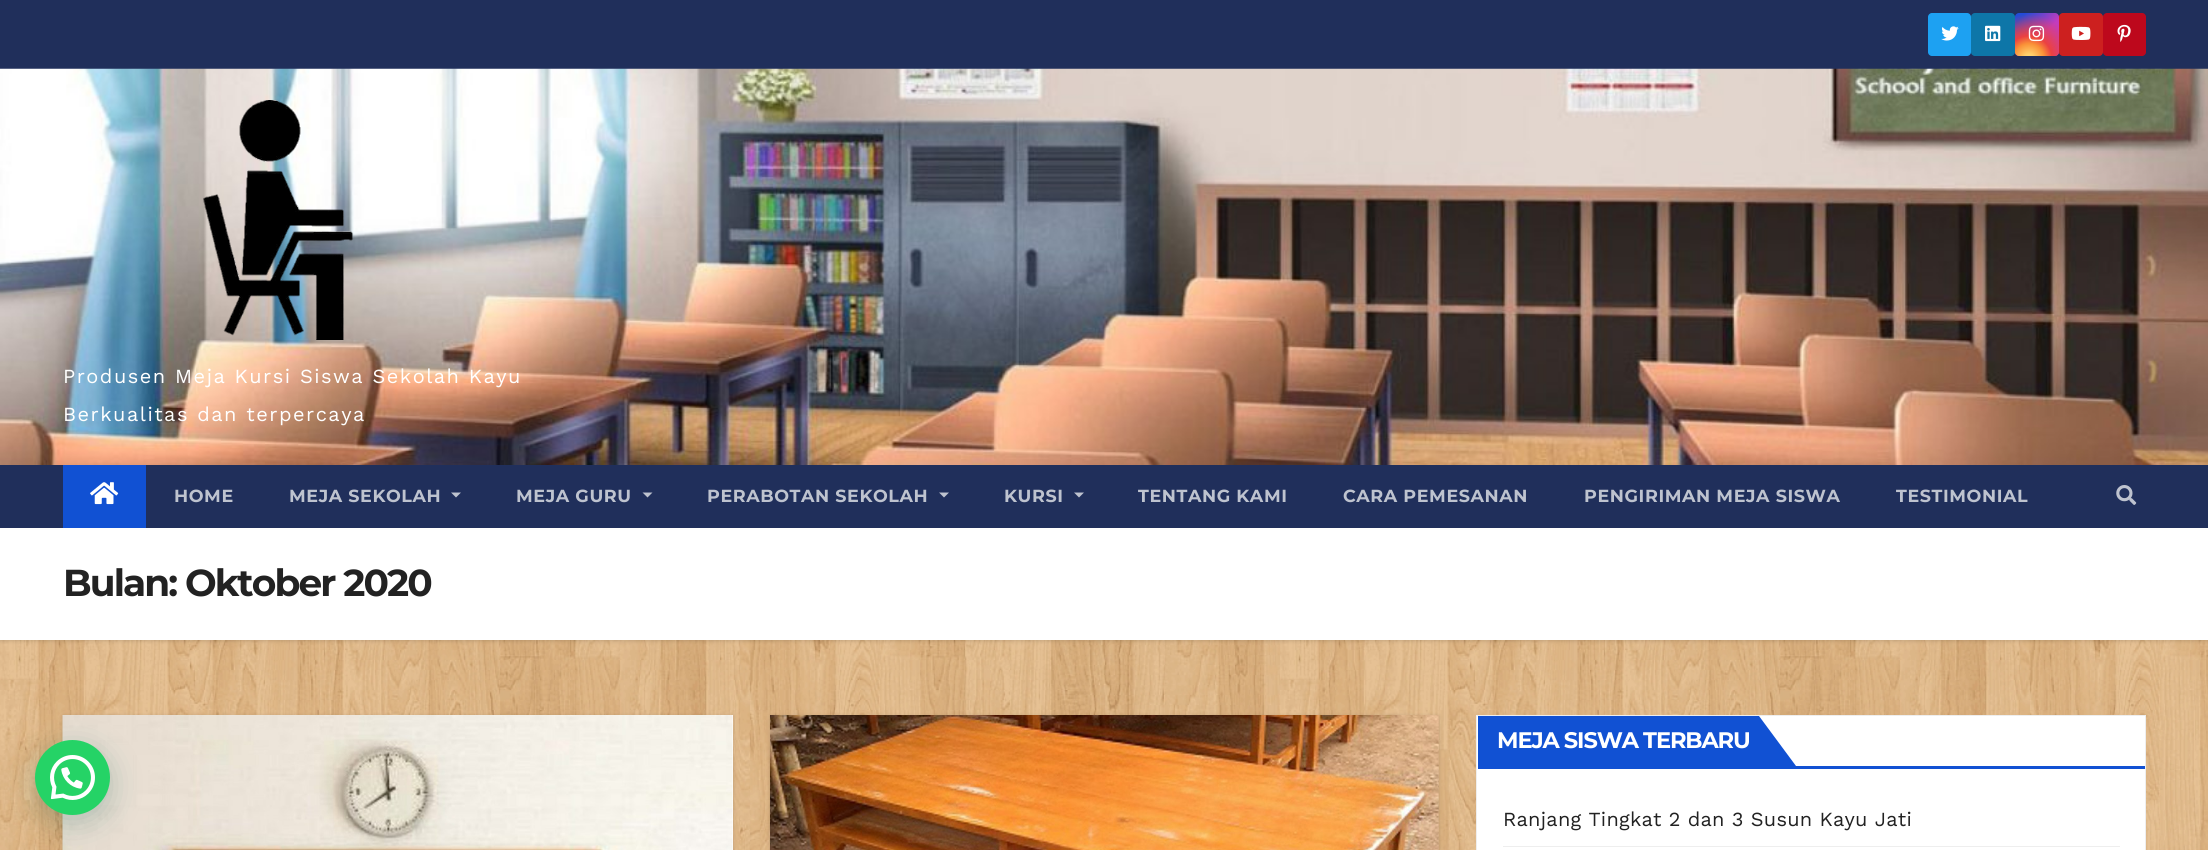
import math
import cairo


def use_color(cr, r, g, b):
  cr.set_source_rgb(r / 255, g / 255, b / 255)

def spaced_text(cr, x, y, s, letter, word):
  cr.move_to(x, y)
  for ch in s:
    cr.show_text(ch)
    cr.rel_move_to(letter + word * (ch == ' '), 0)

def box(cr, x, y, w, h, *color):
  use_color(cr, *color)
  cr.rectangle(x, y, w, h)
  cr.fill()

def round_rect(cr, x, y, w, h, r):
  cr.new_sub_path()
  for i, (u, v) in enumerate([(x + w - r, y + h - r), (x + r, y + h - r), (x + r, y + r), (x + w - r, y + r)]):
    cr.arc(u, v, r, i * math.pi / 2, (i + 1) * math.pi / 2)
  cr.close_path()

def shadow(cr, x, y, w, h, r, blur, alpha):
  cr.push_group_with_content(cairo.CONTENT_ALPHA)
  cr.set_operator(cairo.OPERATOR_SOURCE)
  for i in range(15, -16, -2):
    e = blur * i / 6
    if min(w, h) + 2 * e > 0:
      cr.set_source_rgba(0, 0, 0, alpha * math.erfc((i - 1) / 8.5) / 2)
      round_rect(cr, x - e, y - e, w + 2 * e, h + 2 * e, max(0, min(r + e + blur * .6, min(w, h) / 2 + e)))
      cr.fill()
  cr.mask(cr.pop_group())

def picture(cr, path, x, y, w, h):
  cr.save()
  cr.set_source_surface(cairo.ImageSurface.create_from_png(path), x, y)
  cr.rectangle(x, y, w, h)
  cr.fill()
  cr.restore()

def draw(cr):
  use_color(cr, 255, 255, 255)
  cr.paint()
  picture(cr, "img_01.png", 0, 640, 2208, 210)
  box(cr, 0, 0, 2208, 69, 32, 47, 91)
  use_color(cr, 29, 161, 242)
  round_rect(cr, 1928, 13, 43, 43, 4)
  cr.fill()
  picture(cr, "img_02.png", 1941, 26, 18, 15)
  use_color(cr, 14, 118, 168)
  round_rect(cr, 1971, 13, 44, 43, 4)
  cr.fill()
  picture(cr, "img_03.png", 1985, 25, 16, 17)
  gradient = cairo.LinearGradient(2015, 13, 2059, 56)
  gradient.add_color_stop_rgba(0.12, 0.137, 0.294, 0.843, 1)
  gradient.add_color_stop_rgba(0.58, 0.765, 0.235, 0.745, 1)
  cr.set_source(gradient)
  round_rect(cr, 2015, 13, 44, 43, 4)
  cr.fill()
  gradient = cairo.RadialGradient(2029, 59, 0, 2029, 59, 55)
  gradient.add_color_stop_rgba(0, 1, 0.882, 0.49, 1)
  gradient.add_color_stop_rgba(0.1, 1, 0.804, 0.412, 1)
  gradient.add_color_stop_rgba(0.28, 0.98, 0.569, 0.216, 1)
  gradient.add_color_stop_rgba(0.42, 0.922, 0.255, 0.255, 1)
  gradient.add_color_stop_rgba(0.82, 0.922, 0.255, 0.255, 0)
  cr.set_source(gradient)
  round_rect(cr, 2015, 13, 44, 43, 4)
  cr.fill()
  picture(cr, "img_04.png", 2028, 25, 17, 17)
  use_color(cr, 205, 32, 31)
  round_rect(cr, 2059, 13, 44, 43, 4)
  cr.fill()
  picture(cr, "img_05.png", 2071, 26, 20, 14)
  use_color(cr, 189, 8, 28)
  round_rect(cr, 2103, 13, 43, 43, 4)
  cr.fill()
  picture(cr, "img_06.png", 2117, 24, 14, 18)
  picture(cr, "img_07.png", 0, 68, 2208, 397)
  picture(cr, "img_08.png", 203, 100, 150, 240)
  use_color(cr, 0, 0, 0)
  shadow(cr, 0, 529, 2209, 112, 0, 2, 0.15)
  box(cr, 0, 465, 2208, 63, 32, 47, 91)
  box(cr, 63, 465, 83, 63, 17, 81, 211)
  picture(cr, "img_09.png", 90, 482, 29, 23)
  use_color(cr, 190, 195, 207)
  cr.new_path()
  cr.move_to(451, 492.5)
  cr.line_to(461, 492.5)
  cr.line_to(456, 497.5)
  cr.close_path()
  cr.fill()
  cr.new_path()
  cr.move_to(642.5, 492.5)
  cr.line_to(652.5, 492.5)
  cr.line_to(647.5, 497.5)
  cr.close_path()
  cr.fill()
  cr.new_path()
  cr.move_to(939, 492.5)
  cr.line_to(949, 492.5)
  cr.line_to(944, 497.5)
  cr.close_path()
  cr.fill()
  cr.new_path()
  cr.move_to(1074, 492.5)
  cr.line_to(1084, 492.5)
  cr.line_to(1079, 497.5)
  cr.close_path()
  cr.fill()
  picture(cr, "img_10.png", 2116, 485, 21, 20)
  box(cr, 0, 528, 2208, 112, 255, 255, 255)
  use_color(cr, 0, 0, 0)
  shadow(cr, 63, 716, 670, 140, 0, 2, 0.15)
  box(cr, 732, 715, 1, 135, 255, 255, 255)
  picture(cr, "img_11.png", 62, 715, 671, 135)
  use_color(cr, 0, 0, 0)
  shadow(cr, 770, 716, 669, 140, 0, 2, 0.15)
  picture(cr, "img_12.png", 770, 715, 669, 135)
  use_color(cr, 255, 255, 255)
  cr.rectangle(1476.5, 715.5, 669, 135)
  cr.fill_preserve()
  use_color(cr, 238, 238, 238)
  cr.set_line_width(1)
  cr.stroke()
  box(cr, 1478, 766, 667, 3, 17, 81, 211)
  box(cr, 1478, 716, 281, 50, 17, 81, 211)
  cr.new_path()
  cr.move_to(1759, 766)
  cr.line_to(1759, 716)
  cr.line_to(1796, 766)
  cr.close_path()
  cr.fill()
  box(cr, 1503, 846, 617, 1, 238, 238, 238)
  use_color(cr, 7, 94, 84)
  shadow(cr, 36, 748, 75, 75, 37.5, 15, 0.24)
  use_color(cr, 37, 211, 102)
  cr.arc(72.5, 777.5, 37.5, 0, 2 * math.pi)
  cr.fill()
  picture(cr, "img_13.png", 50, 755, 45, 45)
  cr.select_font_face("Work Sans")
  cr.set_font_size(20)
  use_color(cr, 255, 255, 255)
  spaced_text(cr, 63, 383, "Produsen Meja Kursi Siswa Sekolah Kayu", 1.5, 0)
  spaced_text(cr, 63, 421, "Berkualitas dan terpercaya", 1.5, 0)
  cr.select_font_face("Montserrat", cairo.FONT_SLANT_NORMAL, cairo.FONT_WEIGHT_BOLD)
  cr.set_font_size(17.5)
  use_color(cr, 190, 195, 207)
  spaced_text(cr, 174, 502, "HOME", 0.6, 0)
  spaced_text(cr, 289, 502, "MEJA SEKOLAH", 0.6, 0)
  spaced_text(cr, 516, 502, "MEJA GURU", 0.6, 0)
  spaced_text(cr, 707, 502, "PERABOTAN SEKOLAH", 0.6, 0)
  spaced_text(cr, 1004, 502, "KURSI", 0.6, 0)
  spaced_text(cr, 1138, 502, "TENTANG KAMI", 0.6, 0)
  spaced_text(cr, 1343, 502, "CARA PEMESANAN", 0.6, 0)
  spaced_text(cr, 1584, 502, "PENGIRIMAN MEJA SISWA", 0.6, 0)
  spaced_text(cr, 1896, 502, "TESTIMONIAL", 0.6, 0)
  cr.set_font_size(37.5)
  use_color(cr, 34, 34, 34)
  spaced_text(cr, 63, 596, "Bulan: Oktober 2020", -1.9, 0)
  cr.set_font_size(22.5)
  use_color(cr, 255, 255, 255)
  spaced_text(cr, 1497, 748, "MEJA SISWA TERBARU", -1.1, 0)
  cr.select_font_face("Work Sans")
  cr.set_font_size(20)
  use_color(cr, 34, 34, 34)
  spaced_text(cr, 1503, 826, "Ranjang Tingkat 2 dan 3 Susun Kayu Jati", 0.25, 0)


surface = cairo.ImageSurface(cairo.FORMAT_RGB24, 2208, 850)
cr = cairo.Context(surface)
options = cairo.FontOptions()
options.set_hint_metrics(cairo.HINT_METRICS_OFF)
options.set_hint_style(cairo.HINT_STYLE_NONE)
cr.set_font_options(options)
cr.set_miter_limit(4)
draw(cr)
surface.write_to_png("out.png")
